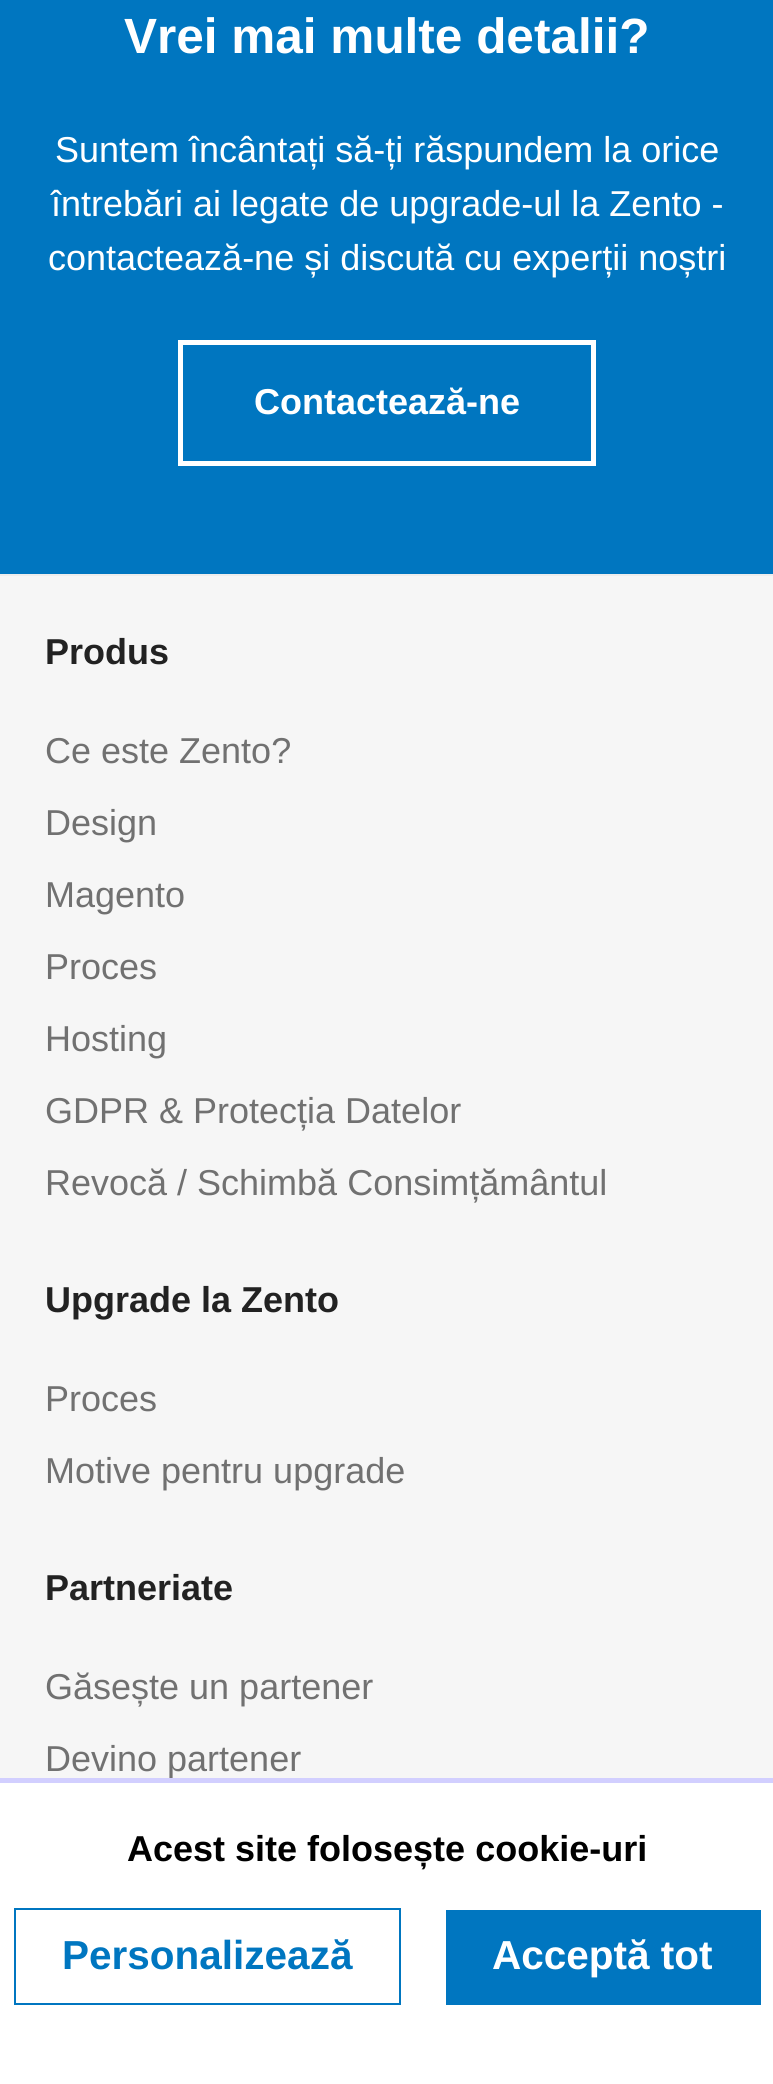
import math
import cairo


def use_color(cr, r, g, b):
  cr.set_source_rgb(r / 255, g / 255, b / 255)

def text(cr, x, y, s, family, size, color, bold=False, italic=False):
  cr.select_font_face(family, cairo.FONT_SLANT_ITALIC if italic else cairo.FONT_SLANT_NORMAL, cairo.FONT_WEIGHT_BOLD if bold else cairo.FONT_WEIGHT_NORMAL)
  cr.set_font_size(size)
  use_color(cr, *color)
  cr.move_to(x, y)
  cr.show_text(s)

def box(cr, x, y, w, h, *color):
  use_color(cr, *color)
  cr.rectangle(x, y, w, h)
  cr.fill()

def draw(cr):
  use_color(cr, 246, 246, 246)
  cr.paint()
  use_color(cr, 0, 118, 192)
  cr.new_path()
  cr.move_to(135, -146)
  cr.line_to(0, -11)
  cr.line_to(0, 574)
  cr.line_to(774, 574)
  cr.line_to(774, -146)
  cr.close_path()
  cr.fill()
  cr.rectangle(180.5, 342.5, 413, 121)
  use_color(cr, 255, 255, 255)
  cr.set_line_width(5)
  cr.stroke()
  box(cr, 0, 574, 773, 2, 237, 237, 237)
  box(cr, 0, 1783, 773, 301, 255, 255, 255)
  cr.rectangle(15, 1909, 385, 95)
  use_color(cr, 0, 118, 192)
  cr.set_line_width(2)
  cr.stroke()
  box(cr, 446, 1910, 315, 95, 0, 118, 192)
  text(cr, 124, 53, "Vrei mai multe detalii?", "Liberation Sans", 49.5, (255, 255, 255), bold=True)
  text(cr, 55, 162, "Suntem încântați să-ți răspundem la orice", "Liberation Sans", 36, (255, 255, 255))
  text(cr, 51, 216, "întrebări ai legate de upgrade-ul la Zento -", "Liberation Sans", 36, (255, 255, 255))
  text(cr, 48, 270, "contactează-ne și discută cu experții noștri", "Liberation Sans", 36, (255, 255, 255))
  text(cr, 254, 414, "Contactează-ne", "Liberation Sans", 36, (255, 255, 255), bold=True)
  text(cr, 45, 664, "Produs", "Liberation Sans", 36, (34, 34, 34), bold=True)
  text(cr, 45, 763, "Ce este Zento?", "Liberation Sans", 36, (113, 113, 113))
  text(cr, 45, 835, "Design", "Liberation Sans", 36, (113, 113, 113))
  text(cr, 45, 907, "Magento", "Liberation Sans", 36, (113, 113, 113))
  text(cr, 45, 979, "Proces", "Liberation Sans", 36, (113, 113, 113))
  text(cr, 45, 1051, "Hosting", "Liberation Sans", 36, (113, 113, 113))
  text(cr, 45, 1123, "GDPR & Protecția Datelor", "Liberation Sans", 36, (113, 113, 113))
  text(cr, 45, 1195, "Revocă / Schimbă Consimțământul", "Liberation Sans", 36, (113, 113, 113))
  text(cr, 45, 1312, "Upgrade la Zento", "Liberation Sans", 36, (34, 34, 34), bold=True)
  text(cr, 45, 1411, "Proces", "Liberation Sans", 36, (113, 113, 113))
  text(cr, 45, 1483, "Motive pentru upgrade", "Liberation Sans", 36, (113, 113, 113))
  text(cr, 45, 1600, "Partneriate", "Liberation Sans", 36, (34, 34, 34), bold=True)
  text(cr, 45, 1699, "Găsește un partener", "Liberation Sans", 36, (113, 113, 113))
  text(cr, 45, 1771, "Devino partener", "Liberation Sans", 36, (113, 113, 113))
  box(cr, 0, 1778, 773, 5, 210, 207, 255)
  text(cr, 127, 1861, "Acest site folosește cookie-uri", "Liberation Sans", 36, (0, 0, 0), bold=True)
  text(cr, 62, 1969, "Personalizează", "Liberation Sans", 40.5, (0, 118, 192), bold=True)
  text(cr, 492, 1969, "Acceptă tot", "Liberation Sans", 40.5, (255, 255, 255), bold=True)


surface = cairo.ImageSurface(cairo.FORMAT_RGB24, 773, 2084)
cr = cairo.Context(surface)
options = cairo.FontOptions()
options.set_hint_metrics(cairo.HINT_METRICS_OFF)
options.set_hint_style(cairo.HINT_STYLE_NONE)
cr.set_font_options(options)
cr.set_miter_limit(4)
draw(cr)
surface.write_to_png("out.png")
